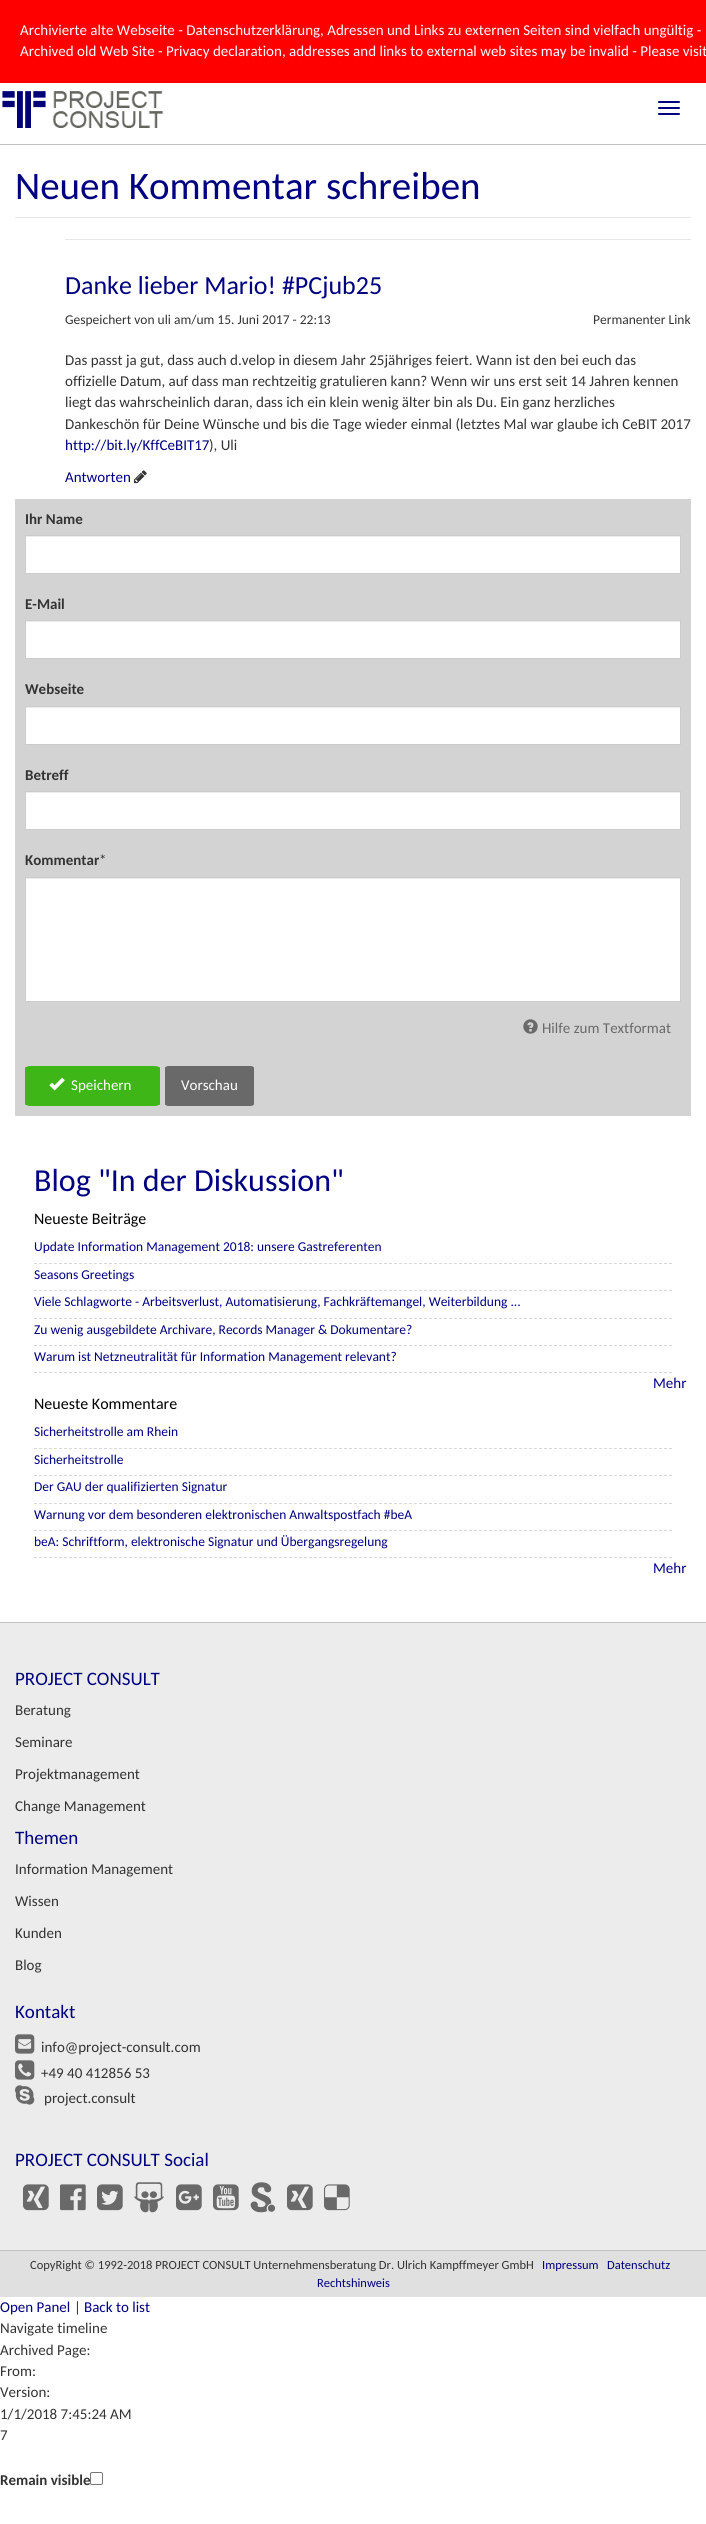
import math
import cairo


def use_color(cr, r, g, b):
  cr.set_source_rgb(r / 255, g / 255, b / 255)

def text(cr, x, y, s, family, size, color, bold=False, italic=False):
  cr.select_font_face(family, cairo.FONT_SLANT_ITALIC if italic else cairo.FONT_SLANT_NORMAL, cairo.FONT_WEIGHT_BOLD if bold else cairo.FONT_WEIGHT_NORMAL)
  cr.set_font_size(size)
  use_color(cr, *color)
  cr.move_to(x, y)
  cr.show_text(s)

def box(cr, x, y, w, h, *color):
  use_color(cr, *color)
  cr.rectangle(x, y, w, h)
  cr.fill()

def round_rect(cr, x, y, w, h, r):
  cr.new_sub_path()
  for i, (u, v) in enumerate([(x + w - r, y + h - r), (x + r, y + h - r), (x + r, y + r), (x + w - r, y + r)]):
    cr.arc(u, v, r, i * math.pi / 2, (i + 1) * math.pi / 2)
  cr.close_path()

def picture(cr, path, x, y, w, h):
  cr.save()
  cr.set_source_surface(cairo.ImageSurface.create_from_png(path), x, y)
  cr.rectangle(x, y, w, h)
  cr.fill()
  cr.restore()

def draw(cr):
  use_color(cr, 255, 255, 255)
  cr.paint()
  box(cr, 0, 0, 706, 83, 255, 0, 0)
  picture(cr, "img_01.png", 2, 91, 162, 37)
  use_color(cr, 0, 0, 128)
  round_rect(cr, 658, 101, 22, 2, 1)
  cr.fill()
  round_rect(cr, 658, 107, 22, 2, 1)
  cr.fill()
  round_rect(cr, 658, 113, 22, 2, 1)
  cr.fill()
  box(cr, 0, 144, 706, 1, 193, 193, 193)
  box(cr, 15, 217, 676, 1, 230, 230, 230)
  box(cr, 65, 239, 626, 1, 230, 230, 230)
  picture(cr, "img_02.png", 134, 470, 13, 14)
  box(cr, 15, 499, 676, 617, 211, 211, 211)
  box(cr, 26, 537, 654, 36, 255, 255, 255)
  box(cr, 26, 536, 654, 1, 236, 236, 236)
  cr.rectangle(25.5, 535.5, 655, 38)
  use_color(cr, 204, 204, 204)
  cr.set_line_width(1)
  cr.stroke()
  box(cr, 26, 622, 654, 36, 255, 255, 255)
  box(cr, 26, 621, 654, 1, 236, 236, 236)
  cr.rectangle(25.5, 620.5, 655, 38)
  use_color(cr, 204, 204, 204)
  cr.stroke()
  box(cr, 26, 708, 654, 36, 255, 255, 255)
  box(cr, 26, 707, 654, 1, 236, 236, 236)
  cr.rectangle(25.5, 706.5, 655, 38)
  use_color(cr, 204, 204, 204)
  cr.stroke()
  box(cr, 26, 793, 654, 36, 255, 255, 255)
  box(cr, 26, 792, 654, 1, 236, 236, 236)
  cr.rectangle(25.5, 791.5, 655, 38)
  use_color(cr, 204, 204, 204)
  cr.stroke()
  box(cr, 26, 879, 654, 122, 255, 255, 255)
  box(cr, 26, 878, 654, 1, 236, 236, 236)
  cr.rectangle(25.5, 877.5, 655, 124)
  use_color(cr, 204, 204, 204)
  cr.stroke()
  picture(cr, "img_03.png", 523, 1019, 15, 15)
  use_color(cr, 63, 182, 24)
  cr.new_path()
  cr.move_to(33, 1066)
  cr.line_to(152, 1066)
  cr.curve_to(156, 1066, 160, 1067, 160, 1068)
  cr.line_to(160, 1104)
  cr.curve_to(160, 1105, 156, 1106, 152, 1106)
  cr.line_to(33, 1106)
  cr.curve_to(29, 1106, 25, 1105, 25, 1104)
  cr.line_to(25, 1068)
  cr.curve_to(25, 1067, 29, 1066, 33, 1066)
  cr.close_path()
  cr.fill()
  cr.new_path()
  cr.move_to(33, 1066.5)
  cr.line_to(152, 1066.5)
  cr.curve_to(156, 1066.5, 159.5, 1067.5, 159.5, 1068.5)
  cr.line_to(159.5, 1103.5)
  cr.curve_to(159.5, 1104.5, 156, 1105.5, 152, 1105.5)
  cr.line_to(33, 1105.5)
  cr.curve_to(29, 1105.5, 25.5, 1104.5, 25.5, 1103.5)
  cr.line_to(25.5, 1068.5)
  cr.curve_to(25.5, 1067.5, 29, 1066.5, 33, 1066.5)
  cr.close_path()
  cr.stroke()
  picture(cr, "img_04.png", 49, 1077, 16, 14)
  use_color(cr, 105, 105, 105)
  cr.new_path()
  cr.move_to(170, 1066)
  cr.line_to(249, 1066)
  cr.curve_to(252, 1066, 254, 1067, 254, 1068)
  cr.line_to(254, 1104)
  cr.curve_to(254, 1105, 252, 1106, 249, 1106)
  cr.line_to(170, 1106)
  cr.curve_to(167, 1106, 165, 1105, 165, 1104)
  cr.line_to(165, 1068)
  cr.curve_to(165, 1067, 167, 1066, 170, 1066)
  cr.close_path()
  cr.fill()
  cr.new_path()
  cr.move_to(170.5, 1066.5)
  cr.line_to(248.5, 1066.5)
  cr.curve_to(251.5, 1066.5, 253.5, 1067.5, 253.5, 1068.5)
  cr.line_to(253.5, 1103.5)
  cr.curve_to(253.5, 1104.5, 251.5, 1105.5, 248.5, 1105.5)
  cr.line_to(170.5, 1105.5)
  cr.curve_to(167.5, 1105.5, 165.5, 1104.5, 165.5, 1103.5)
  cr.line_to(165.5, 1068.5)
  cr.curve_to(165.5, 1067.5, 167.5, 1066.5, 170.5, 1066.5)
  cr.close_path()
  cr.stroke()
  cr.new_path()
  cr.move_to(34, 1263.5)
  cr.line_to(672, 1263.5)
  use_color(cr, 216, 216, 216)
  cr.set_dash([3, 2])
  cr.stroke()
  cr.new_path()
  cr.move_to(34, 1290.5)
  cr.line_to(672, 1290.5)
  cr.stroke()
  cr.new_path()
  cr.move_to(34, 1318.5)
  cr.line_to(672, 1318.5)
  cr.stroke()
  cr.new_path()
  cr.move_to(34, 1345.5)
  cr.line_to(672, 1345.5)
  cr.stroke()
  cr.new_path()
  cr.move_to(34, 1372.5)
  cr.line_to(672, 1372.5)
  cr.stroke()
  cr.new_path()
  cr.move_to(34, 1448.5)
  cr.line_to(672, 1448.5)
  cr.stroke()
  cr.new_path()
  cr.move_to(34, 1475.5)
  cr.line_to(672, 1475.5)
  cr.stroke()
  cr.new_path()
  cr.move_to(34, 1503.5)
  cr.line_to(672, 1503.5)
  cr.stroke()
  cr.new_path()
  cr.move_to(34, 1530.5)
  cr.line_to(672, 1530.5)
  cr.stroke()
  cr.new_path()
  cr.move_to(34, 1557.5)
  cr.line_to(672, 1557.5)
  cr.stroke()
  box(cr, 0, 1623, 706, 627, 236, 236, 236)
  box(cr, 0, 1622, 706, 1, 193, 193, 193)
  picture(cr, "img_05.png", 15, 2034, 20, 20)
  picture(cr, "img_06.png", 15, 2060, 20, 20)
  picture(cr, "img_07.png", 15, 2085, 20, 20)
  picture(cr, "img_08.png", 23, 2184, 26, 27)
  picture(cr, "img_09.png", 60, 2184, 26, 27)
  picture(cr, "img_10.png", 97, 2184, 26, 27)
  picture(cr, "img_11.png", 134, 2182, 30, 31)
  picture(cr, "img_12.png", 176, 2184, 26, 27)
  picture(cr, "img_13.png", 213, 2184, 26, 27)
  picture(cr, "img_14.png", 250, 2182, 26, 31)
  picture(cr, "img_08.png", 287, 2184, 26, 27)
  picture(cr, "img_15.png", 324, 2184, 26, 27)
  box(cr, 0, 2251, 706, 46, 224, 224, 224)
  box(cr, 0, 2250, 706, 1, 193, 193, 193)
  round_rect(cr, 90.5, 2472.5, 12, 12, 1.5)
  use_color(cr, 118, 118, 118)
  cr.set_dash([])
  cr.stroke()
  text(cr, 20, 35, "Archivierte alte Webseite - Datenschutzerklärung, Adressen und Links zu externen Seiten sind vielfach ungültig -", "Carlito", 15, (255, 255, 255))
  text(cr, 20, 56, "Archived old Web Site - Privacy declaration, addresses and links to external web sites may be invalid - Please visit", "Carlito", 15, (255, 255, 255))
  text(cr, 15, 199, "Neuen Kommentar schreiben", "Carlito", 39, (0, 0, 128))
  text(cr, 65, 294, "Danke lieber Mario! #PCjub25", "Carlito", 26, (0, 0, 128))
  text(cr, 65, 324, "Gespeichert von uli am/um 15. Juni 2017 - 22:13", "Carlito", 13.5, (51, 51, 51))
  text(cr, 593, 324, "Permanenter Link", "Carlito", 13.5, (51, 51, 51))
  text(cr, 65, 365, "Das passt ja gut, dass auch d.velop in diesem Jahr 25jähriges feiert. Wann ist den bei euch das", "Carlito", 15, (51, 51, 51))
  text(cr, 65, 386, "offizielle Datum, auf dass man rechtzeitig gratulieren kann? Wenn wir uns erst seit 14 Jahren kennen", "Carlito", 15, (51, 51, 51))
  text(cr, 65, 407, "liegt das wahrscheinlich daran, dass ich ein klein wenig älter bin als Du. Ein ganz herzliches", "Carlito", 15, (51, 51, 51))
  text(cr, 65, 429, "Dankeschön für Deine Wünsche und bis die Tage wieder einmal (letztes Mal war glaube ich CeBIT 2017", "Carlito", 15, (51, 51, 51))
  text(cr, 65, 450, "http://bit.ly/KffCeBIT17", "Carlito", 15, (0, 0, 128))
  text(cr, 209, 450, "), Uli", "Carlito", 15, (51, 51, 51))
  text(cr, 65, 482, "Antworten", "Carlito", 15, (0, 0, 128))
  text(cr, 25, 524, "Ihr Name", "Carlito", 15, (51, 51, 51), bold=True)
  text(cr, 25, 609, "E-Mail", "Carlito", 15, (51, 51, 51), bold=True)
  text(cr, 25, 694, "Webseite", "Carlito", 15, (51, 51, 51), bold=True)
  text(cr, 25, 780, "Betreff", "Carlito", 15, (51, 51, 51), bold=True)
  text(cr, 25, 865, "Kommentar", "Carlito", 15, (51, 51, 51), bold=True)
  text(cr, 99, 865, "*", "Carlito", 15, (51, 51, 51))
  text(cr, 542, 1033, "Hilfe zum Textformat", "Carlito", 15, (105, 105, 105))
  text(cr, 71, 1090, "Speichern", "Carlito", 15, (255, 255, 255))
  text(cr, 181, 1090, "Vorschau", "Carlito", 15, (255, 255, 255))
  text(cr, 34, 1191, "Blog \"In der Diskussion\"", "Carlito", 32, (0, 0, 128))
  text(cr, 34, 1224, "Neueste Beiträge", "Carlito", 16, (0, 0, 0))
  text(cr, 34, 1251, "Update Information Management 2018: unsere Gastreferenten", "Carlito", 13.5, (0, 0, 128))
  text(cr, 34, 1279, "Seasons Greetings", "Carlito", 13.5, (0, 0, 128))
  text(cr, 34, 1306, "Viele Schlagworte - Arbeitsverlust, Automatisierung, Fachkräftemangel, Weiterbildung ...", "Carlito", 13.5, (0, 0, 128))
  text(cr, 34, 1334, "Zu wenig ausgebildete Archivare, Records Manager & Dokumentare?", "Carlito", 13.5, (0, 0, 128))
  text(cr, 34, 1361, "Warum ist Netzneutralität für Information Management relevant?", "Carlito", 13.5, (0, 0, 128))
  text(cr, 653, 1388, "Mehr", "Carlito", 15, (0, 0, 128))
  text(cr, 34, 1409, "Neueste Kommentare", "Carlito", 16, (0, 0, 0))
  text(cr, 34, 1436, "Sicherheitstrolle am Rhein", "Carlito", 13.5, (0, 0, 128))
  text(cr, 34, 1464, "Sicherheitstrolle", "Carlito", 13.5, (0, 0, 128))
  text(cr, 34, 1491, "Der GAU der qualifizierten Signatur", "Carlito", 13.5, (0, 0, 128))
  text(cr, 34, 1519, "Warnung vor dem besonderen elektronischen Anwaltspostfach #beA", "Carlito", 13.5, (0, 0, 128))
  text(cr, 34, 1546, "beA: Schriftform, elektronische Signatur und Übergangsregelung", "Carlito", 13.5, (0, 0, 128))
  text(cr, 653, 1573, "Mehr", "Carlito", 15, (0, 0, 128))
  text(cr, 15, 1685, "PROJECT CONSULT", "Carlito", 19, (0, 0, 128))
  text(cr, 15, 1715, "Beratung", "Carlito", 15, (51, 51, 51))
  text(cr, 15, 1747, "Seminare", "Carlito", 15, (51, 51, 51))
  text(cr, 15, 1779, "Projektmanagement", "Carlito", 15, (51, 51, 51))
  text(cr, 15, 1811, "Change Management", "Carlito", 15, (51, 51, 51))
  text(cr, 15, 1844, "Themen", "Carlito", 19, (0, 0, 128))
  text(cr, 15, 1874, "Information Management", "Carlito", 15, (51, 51, 51))
  text(cr, 15, 1906, "Wissen", "Carlito", 15, (51, 51, 51))
  text(cr, 15, 1938, "Kunden", "Carlito", 15, (51, 51, 51))
  text(cr, 15, 1970, "Blog", "Carlito", 15, (51, 51, 51))
  text(cr, 15, 2018, "Kontakt", "Carlito", 19, (0, 0, 128))
  text(cr, 41, 2052, "info@project-consult.com", "Carlito", 15, (51, 51, 51))
  text(cr, 41, 2078, "+49 40 412856 53", "Carlito", 15, (51, 51, 51))
  text(cr, 44, 2103, "project.consult", "Carlito", 15, (51, 51, 51))
  text(cr, 15, 2166, "PROJECT CONSULT Social", "Carlito", 19, (0, 0, 128))
  text(cr, 30, 2269, "CopyRight © 1992-2018 PROJECT CONSULT Unternehmensberatung Dr. Ulrich Kampffmeyer GmbH", "Carlito", 12.5, (51, 51, 51))
  text(cr, 542, 2269, "Impressum", "Carlito", 12.5, (0, 0, 128))
  text(cr, 607, 2269, "Datenschutz", "Carlito", 12.5, (0, 0, 128))
  text(cr, 317, 2287, "Rechtshinweis", "Carlito", 12.5, (0, 0, 128))
  text(cr, 0, 2312, "Open Panel", "Carlito", 15, (0, 0, 128))
  text(cr, 74, 2312, "|", "Carlito", 15, (51, 51, 51))
  text(cr, 84, 2312, "Back to list", "Carlito", 15, (0, 0, 128))
  text(cr, 0, 2333, "Navigate timeline", "Carlito", 15, (51, 51, 51))
  text(cr, 0, 2355, "Archived Page:", "Carlito", 15, (51, 51, 51))
  text(cr, 0, 2376, "From:", "Carlito", 15, (51, 51, 51))
  text(cr, 0, 2397, "Version:", "Carlito", 15, (51, 51, 51))
  text(cr, 0, 2419, "1/1/2018 7:45:24 AM", "Carlito", 15, (51, 51, 51))
  text(cr, 0, 2440, "7", "Carlito", 15, (51, 51, 51))
  text(cr, 0, 2485, "Remain visible", "Carlito", 15, (51, 51, 51), bold=True)


surface = cairo.ImageSurface(cairo.FORMAT_RGB24, 706, 2524)
cr = cairo.Context(surface)
options = cairo.FontOptions()
options.set_hint_metrics(cairo.HINT_METRICS_OFF)
options.set_hint_style(cairo.HINT_STYLE_NONE)
cr.set_font_options(options)
cr.set_miter_limit(4)
draw(cr)
surface.write_to_png("out.png")
